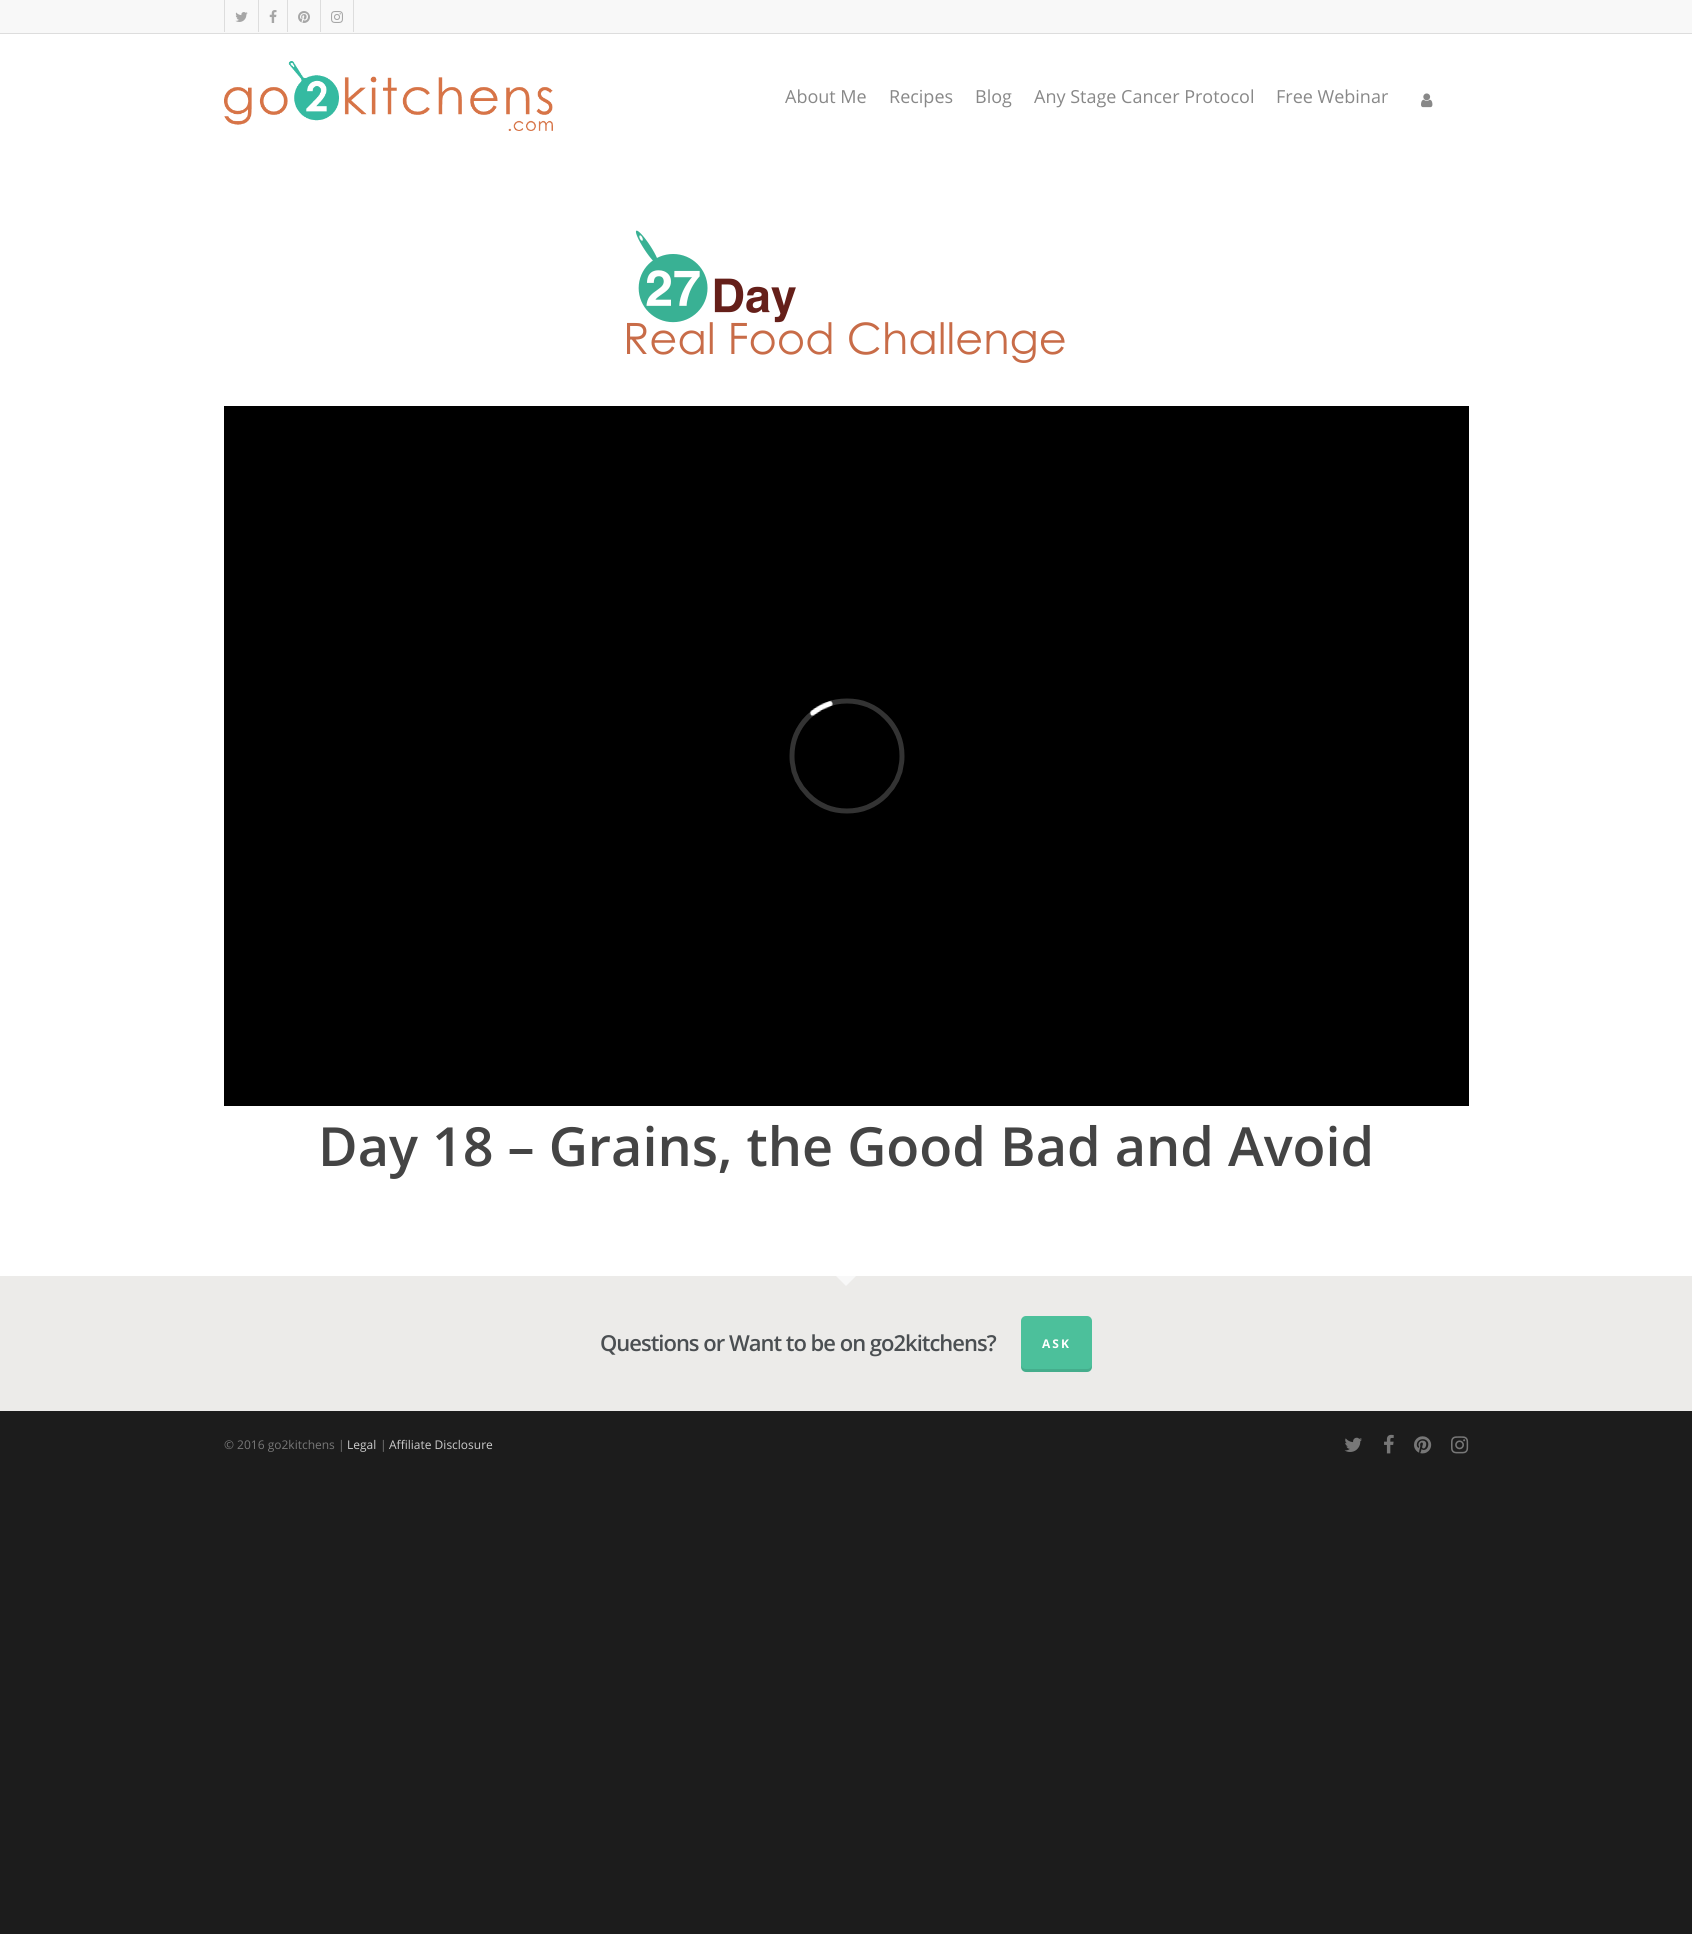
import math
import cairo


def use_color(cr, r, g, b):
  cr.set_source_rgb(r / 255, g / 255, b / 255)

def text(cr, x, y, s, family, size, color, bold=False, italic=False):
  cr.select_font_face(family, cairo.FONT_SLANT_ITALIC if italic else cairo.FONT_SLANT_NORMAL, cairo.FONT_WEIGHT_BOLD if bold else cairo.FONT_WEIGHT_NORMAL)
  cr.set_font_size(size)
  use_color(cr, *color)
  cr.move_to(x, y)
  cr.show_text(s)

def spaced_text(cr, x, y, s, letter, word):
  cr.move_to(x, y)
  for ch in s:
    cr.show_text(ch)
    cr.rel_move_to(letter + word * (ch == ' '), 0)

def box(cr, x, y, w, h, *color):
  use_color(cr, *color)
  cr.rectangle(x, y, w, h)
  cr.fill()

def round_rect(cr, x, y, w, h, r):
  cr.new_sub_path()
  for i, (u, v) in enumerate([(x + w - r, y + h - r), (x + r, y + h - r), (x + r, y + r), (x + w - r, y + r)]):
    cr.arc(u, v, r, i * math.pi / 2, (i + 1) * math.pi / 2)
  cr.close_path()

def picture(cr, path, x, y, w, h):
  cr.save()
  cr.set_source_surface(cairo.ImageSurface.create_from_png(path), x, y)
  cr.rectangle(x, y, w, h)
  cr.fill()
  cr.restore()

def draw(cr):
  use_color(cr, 28, 28, 28)
  cr.paint()
  box(cr, 0, 0, 1692, 33, 248, 248, 248)
  box(cr, 0, 33, 1692, 1, 221, 221, 221)
  box(cr, 224, 0, 1, 32, 221, 221, 221)
  picture(cr, "img_01.png", 235, 12, 13, 10)
  box(cr, 258, 0, 1, 32, 221, 221, 221)
  picture(cr, "img_02.png", 269, 10, 8, 13)
  box(cr, 287, 0, 1, 32, 221, 221, 221)
  picture(cr, "img_03.png", 298, 11, 12, 12)
  box(cr, 353, 0, 1, 32, 221, 221, 221)
  box(cr, 320, 0, 1, 32, 221, 221, 221)
  picture(cr, "img_04.png", 331, 11, 12, 12)
  box(cr, 0, 34, 1692, 1242, 255, 255, 255)
  picture(cr, "img_05.png", 224, 61, 329, 70)
  picture(cr, "img_06.png", 1421, 93, 12, 15)
  picture(cr, "img_07.png", 627, 230, 438, 133)
  picture(cr, "img_08.png", 224, 406, 1245, 700)
  box(cr, 0, 1276, 1692, 135, 236, 235, 233)
  use_color(cr, 248, 248, 248)
  cr.new_path()
  cr.move_to(836, 1276)
  cr.line_to(856, 1276)
  cr.line_to(846, 1286)
  cr.close_path()
  cr.fill()
  use_color(cr, 76, 192, 155)
  round_rect(cr, 1021, 1316, 71, 56, 5)
  cr.fill()
  cr.set_source_rgba(0, 0, 0, 0.1)
  cr.new_path()
  cr.move_to(1021, 1364)
  cr.curve_to(1021, 1374, 1026, 1372, 1036, 1372)
  cr.line_to(1077, 1372)
  cr.curve_to(1087, 1372, 1092, 1374, 1092, 1364)
  cr.curve_to(1092, 1367, 1090, 1369, 1087, 1369)
  cr.line_to(1026, 1369)
  cr.curve_to(1023, 1369, 1021, 1367, 1021, 1364)
  cr.close_path()
  cr.fill()
  picture(cr, "img_09.png", 1344, 1437, 18, 15)
  picture(cr, "img_10.png", 1384, 1434, 10, 20)
  picture(cr, "img_11.png", 1414, 1436, 18, 18)
  picture(cr, "img_12.png", 1451, 1436, 18, 18)
  text(cr, 785, 103, "About Me", "Open Sans", 18, (136, 136, 136))
  text(cr, 889, 103, "Recipes", "Open Sans", 18, (136, 136, 136))
  text(cr, 975, 103, "Blog", "Open Sans", 18, (136, 136, 136))
  text(cr, 1034, 103, "Any Stage Cancer Protocol", "Open Sans", 18, (136, 136, 136))
  text(cr, 1276, 103, "Free Webinar", "Open Sans", 18, (136, 136, 136))
  text(cr, 318, 1166, "Day 18 – Grains, the Good Bad and Avoid", "Open Sans SemiBold", 54, (68, 68, 68))
  cr.set_font_size(22)
  use_color(cr, 75, 79, 82)
  spaced_text(cr, 600, 1351, "Questions or Want to be on go2kitchens?", -1, 0)
  cr.select_font_face("Open Sans", cairo.FONT_SLANT_NORMAL, cairo.FONT_WEIGHT_BOLD)
  cr.set_font_size(12)
  use_color(cr, 255, 255, 255)
  spaced_text(cr, 1042, 1348, "ASK", 2, 0)
  text(cr, 224, 1449, "© 2016 go2kitchens |", "Open Sans", 12, (119, 119, 119))
  text(cr, 347, 1449, "Legal", "Open Sans", 12, (204, 204, 204))
  text(cr, 380, 1449, "|", "Open Sans", 12, (119, 119, 119))
  text(cr, 389, 1449, "Affiliate Disclosure", "Open Sans", 12, (204, 204, 204))


surface = cairo.ImageSurface(cairo.FORMAT_RGB24, 1692, 1934)
cr = cairo.Context(surface)
options = cairo.FontOptions()
options.set_hint_metrics(cairo.HINT_METRICS_OFF)
options.set_hint_style(cairo.HINT_STYLE_NONE)
cr.set_font_options(options)
cr.set_miter_limit(4)
draw(cr)
surface.write_to_png("out.png")
